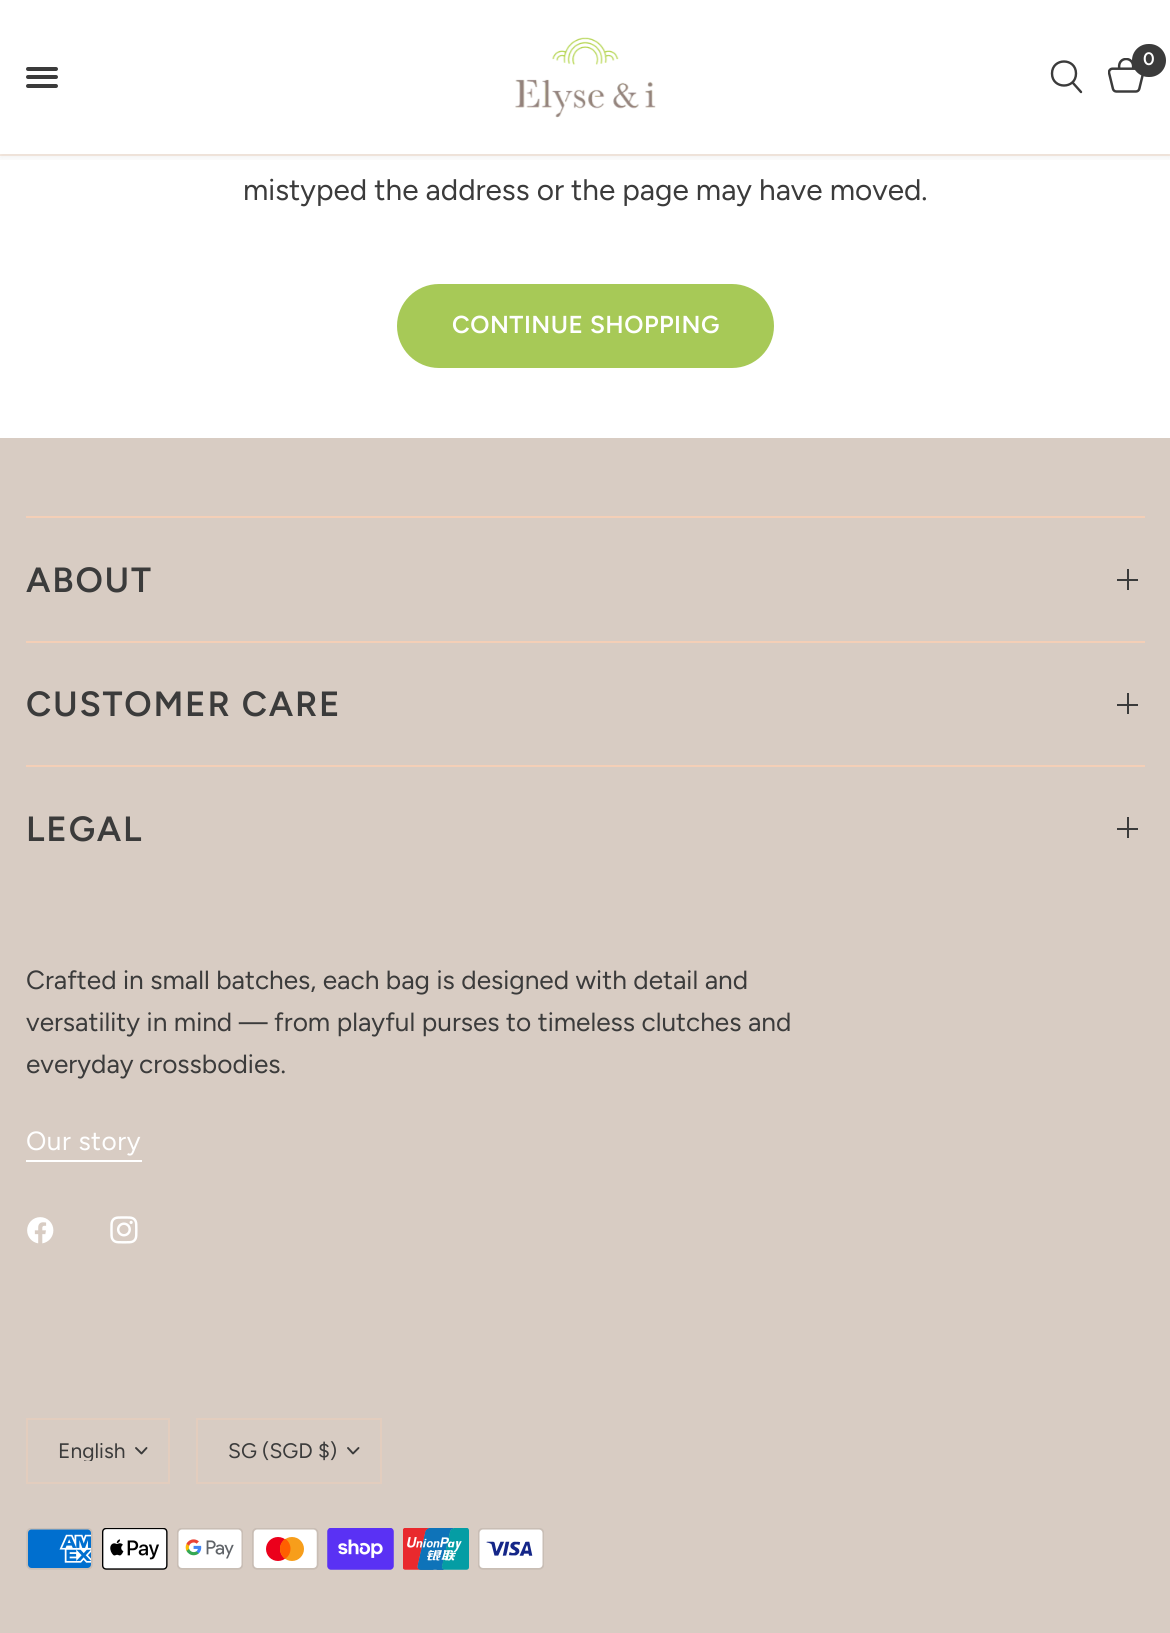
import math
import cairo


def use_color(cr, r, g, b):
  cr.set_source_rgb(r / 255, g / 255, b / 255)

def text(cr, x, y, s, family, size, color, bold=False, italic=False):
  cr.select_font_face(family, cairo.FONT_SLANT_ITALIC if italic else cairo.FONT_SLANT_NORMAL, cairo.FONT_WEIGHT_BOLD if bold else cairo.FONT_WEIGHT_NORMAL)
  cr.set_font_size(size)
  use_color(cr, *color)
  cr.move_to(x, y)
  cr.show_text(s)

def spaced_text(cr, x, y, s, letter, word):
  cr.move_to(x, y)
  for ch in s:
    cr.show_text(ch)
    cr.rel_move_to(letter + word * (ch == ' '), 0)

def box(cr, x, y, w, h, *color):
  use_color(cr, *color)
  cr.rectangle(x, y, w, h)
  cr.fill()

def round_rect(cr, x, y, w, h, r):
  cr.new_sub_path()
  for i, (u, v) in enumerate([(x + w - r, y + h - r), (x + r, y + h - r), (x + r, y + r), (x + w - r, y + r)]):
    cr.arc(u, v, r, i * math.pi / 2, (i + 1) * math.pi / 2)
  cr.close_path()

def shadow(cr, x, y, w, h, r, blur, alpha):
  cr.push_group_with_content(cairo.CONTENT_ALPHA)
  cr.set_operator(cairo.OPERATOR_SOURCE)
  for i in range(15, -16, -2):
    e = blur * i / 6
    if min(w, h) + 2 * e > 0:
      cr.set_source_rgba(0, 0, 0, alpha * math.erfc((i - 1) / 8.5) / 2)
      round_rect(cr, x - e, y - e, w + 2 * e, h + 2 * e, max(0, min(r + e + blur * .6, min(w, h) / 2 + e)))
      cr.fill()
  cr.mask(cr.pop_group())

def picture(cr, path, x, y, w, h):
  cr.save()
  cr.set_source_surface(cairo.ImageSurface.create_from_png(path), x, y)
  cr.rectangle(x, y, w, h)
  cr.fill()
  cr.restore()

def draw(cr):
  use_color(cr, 255, 255, 255)
  cr.paint()
  box(cr, 0, 154, 1170, 2, 249, 236, 227)
  cr.save()
  cr.rectangle(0, 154, 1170, 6)
  cr.clip()
  use_color(cr, 0, 0, 0)
  shadow(cr, 0, 4, 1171, 154, 0, 4.5, 0.06)
  cr.restore()
  picture(cr, "img_01.png", 515, 37, 141, 81)
  cr.new_path()
  cr.move_to(1073, 83)
  cr.line_to(1081, 92)
  cr.move_to(1076, 73.5)
  cr.curve_to(1076, 89.5, 1052, 89.5, 1052, 73.5)
  cr.curve_to(1052, 57.5, 1076, 57.5, 1076, 73.5)
  cr.close_path()
  use_color(cr, 59, 59, 59)
  cr.set_line_width(2.4)
  cr.set_line_cap(cairo.LINE_CAP_ROUND)
  cr.set_line_join(cairo.LINE_JOIN_ROUND)
  cr.stroke()
  picture(cr, "img_02.png", 1108, 58, 36, 35)
  round_rect(cr, 1132, 44, 34, 33, 16.5)
  cr.fill()
  round_rect(cr, 26, 67, 32, 4, 2)
  cr.fill()
  round_rect(cr, 26, 75, 32, 4, 2)
  cr.fill()
  round_rect(cr, 26, 84, 32, 4, 2)
  cr.fill()
  use_color(cr, 167, 201, 87)
  round_rect(cr, 398, 285, 375, 82, 41)
  cr.fill_preserve()
  cr.set_line_width(2)
  cr.set_line_cap(cairo.LINE_CAP_BUTT)
  cr.set_line_join(cairo.LINE_JOIN_MITER)
  cr.stroke()
  box(cr, 0, 438, 1170, 1195, 216, 204, 195)
  box(cr, 26, 516, 1119, 2, 244, 207, 183)
  box(cr, 1127, 569, 2, 21, 59, 59, 59)
  box(cr, 1117, 579, 21, 2, 59, 59, 59)
  box(cr, 26, 641, 1119, 2, 244, 207, 183)
  box(cr, 1127, 693, 2, 21, 59, 59, 59)
  box(cr, 1117, 704, 21, 2, 59, 59, 59)
  box(cr, 26, 765, 1119, 2, 244, 207, 183)
  box(cr, 1127, 817, 2, 21, 59, 59, 59)
  box(cr, 1117, 828, 21, 2, 59, 59, 59)
  box(cr, 26, 1160, 116, 2, 255, 255, 255)
  picture(cr, "img_03.png", 27, 1217, 27, 27)
  picture(cr, "img_04.png", 110, 1216, 28, 28)
  cr.rectangle(27, 1419, 142, 64)
  use_color(cr, 227, 205, 190)
  cr.stroke()
  cr.new_path()
  cr.move_to(146.5, 1448)
  cr.line_to(141.5, 1453.5)
  cr.line_to(136, 1448)
  use_color(cr, 59, 59, 59)
  cr.set_line_width(1.9)
  cr.set_line_cap(cairo.LINE_CAP_ROUND)
  cr.set_line_join(cairo.LINE_JOIN_ROUND)
  cr.stroke()
  cr.rectangle(197, 1419, 184, 64)
  use_color(cr, 227, 205, 190)
  cr.set_line_width(2)
  cr.set_line_cap(cairo.LINE_CAP_BUTT)
  cr.set_line_join(cairo.LINE_JOIN_MITER)
  cr.stroke()
  cr.new_path()
  cr.move_to(358.5, 1448)
  cr.line_to(353, 1453.5)
  cr.line_to(348, 1448)
  use_color(cr, 59, 59, 59)
  cr.set_line_width(1.9)
  cr.set_line_cap(cairo.LINE_CAP_ROUND)
  cr.set_line_join(cairo.LINE_JOIN_ROUND)
  cr.stroke()
  picture(cr, "img_05.png", 26, 1528, 67, 42)
  picture(cr, "img_06.png", 102, 1528, 66, 42)
  picture(cr, "img_07.png", 177, 1528, 66, 42)
  picture(cr, "img_08.png", 252, 1528, 67, 42)
  picture(cr, "img_09.png", 327, 1528, 67, 42)
  picture(cr, "img_10.png", 403, 1528, 66, 42)
  picture(cr, "img_11.png", 478, 1528, 66, 42)
  text(cr, 1143, 65, "0", "Figtree SemiBold", 18, (255, 255, 255))
  cr.select_font_face("Figtree")
  cr.set_font_size(29.75)
  use_color(cr, 59, 59, 59)
  spaced_text(cr, 243, 200, "mistyped the address or the page may have moved.", 0, -0.25)
  cr.select_font_face("Figtree SemiBold")
  cr.set_font_size(24.5)
  use_color(cr, 255, 255, 255)
  spaced_text(cr, 452, 333, "CONTINUE SHOPPING", 0.5, 0)
  cr.set_font_size(35)
  use_color(cr, 59, 59, 59)
  spaced_text(cr, 26, 592, "ABOUT", 1.75, 0)
  spaced_text(cr, 26, 716, "CUSTOMER CARE", 1.75, 0)
  spaced_text(cr, 26, 841, "LEGAL", 1.75, 0)
  text(cr, 26, 989, "Crafted in small batches, each bag is designed with detail and", "Figtree", 26.25, (59, 59, 59))
  text(cr, 26, 1031, "versatility in mind — from playful purses to timeless clutches and", "Figtree", 26.25, (59, 59, 59))
  spaced_text(cr, 26, 1073, "everyday crossbodies.", 0, -1)
  use_color(cr, 255, 255, 255)
  spaced_text(cr, 26, 1150, "Our story", 0.5, 0)
  cr.save()
  cr.rectangle(58, 1440, 68, 21)
  cr.clip()
  text(cr, 58, 1458, "English", "Figtree", 21, (59, 59, 59))
  cr.restore()
  text(cr, 228, 1458, "SG (SGD $)", "Figtree", 21, (59, 59, 59))


surface = cairo.ImageSurface(cairo.FORMAT_RGB24, 1170, 1633)
cr = cairo.Context(surface)
options = cairo.FontOptions()
options.set_hint_metrics(cairo.HINT_METRICS_OFF)
options.set_hint_style(cairo.HINT_STYLE_NONE)
cr.set_font_options(options)
cr.set_miter_limit(4)
draw(cr)
surface.write_to_png("out.png")
